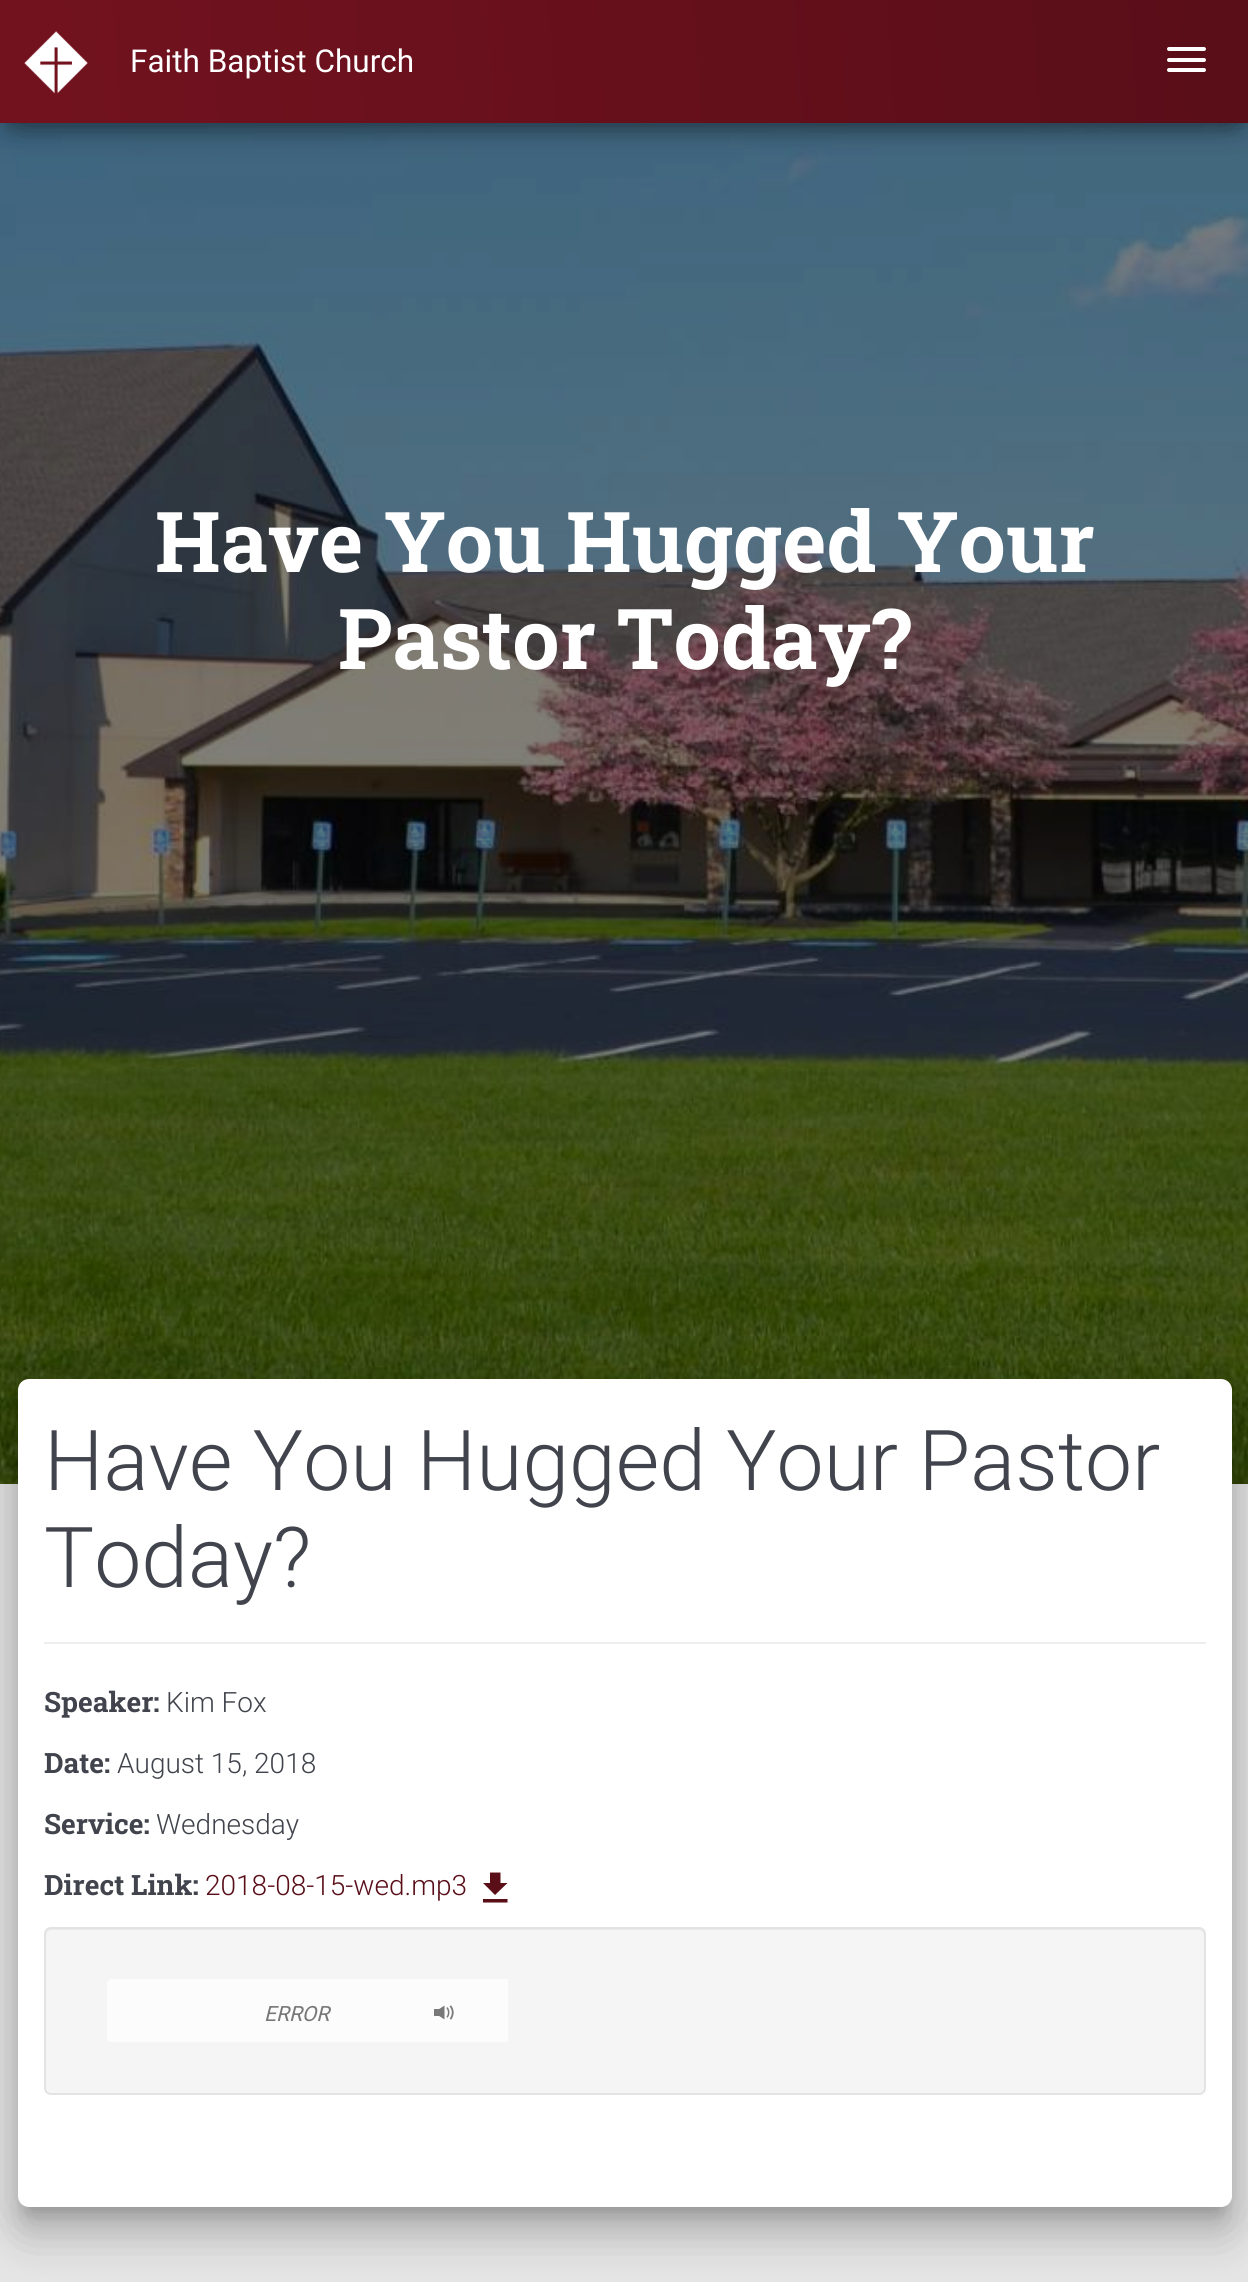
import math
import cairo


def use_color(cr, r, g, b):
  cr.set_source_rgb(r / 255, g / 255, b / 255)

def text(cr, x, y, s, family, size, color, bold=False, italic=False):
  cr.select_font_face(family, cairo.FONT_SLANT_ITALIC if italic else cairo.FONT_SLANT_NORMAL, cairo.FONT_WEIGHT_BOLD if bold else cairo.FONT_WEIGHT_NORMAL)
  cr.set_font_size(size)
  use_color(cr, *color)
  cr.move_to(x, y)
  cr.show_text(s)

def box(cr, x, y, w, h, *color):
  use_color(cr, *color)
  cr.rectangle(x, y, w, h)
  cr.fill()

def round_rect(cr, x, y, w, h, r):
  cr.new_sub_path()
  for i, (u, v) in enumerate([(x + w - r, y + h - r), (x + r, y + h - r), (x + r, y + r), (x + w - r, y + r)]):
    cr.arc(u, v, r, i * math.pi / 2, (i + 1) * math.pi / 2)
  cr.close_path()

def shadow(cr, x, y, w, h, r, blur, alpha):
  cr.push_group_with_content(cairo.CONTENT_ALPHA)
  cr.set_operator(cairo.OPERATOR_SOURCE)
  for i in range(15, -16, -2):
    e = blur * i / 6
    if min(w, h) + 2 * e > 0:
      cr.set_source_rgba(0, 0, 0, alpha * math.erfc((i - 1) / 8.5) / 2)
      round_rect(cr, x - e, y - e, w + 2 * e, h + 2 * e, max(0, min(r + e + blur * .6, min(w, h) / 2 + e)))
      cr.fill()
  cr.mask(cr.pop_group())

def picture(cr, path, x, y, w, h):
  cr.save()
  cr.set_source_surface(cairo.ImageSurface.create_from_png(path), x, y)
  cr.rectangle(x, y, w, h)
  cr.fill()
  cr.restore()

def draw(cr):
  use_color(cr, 229, 229, 229)
  cr.paint()
  picture(cr, "img_02.png", 0, 123, 1248, 1361)
  use_color(cr, 0, 0, 0)
  shadow(cr, 9, 23, 1232, 105, 0, 9, 0.2)
  shadow(cr, 0, 5, 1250, 123, 0, 17.5, 0.12)
  shadow(cr, 21, 39, 1208, 80, 0, 17.5, 0.42)
  gradient = cairo.LinearGradient(-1.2, 105, 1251, 17)
  gradient.add_color_stop_rgba(0, 0.451, 0.071, 0.122, 1)
  gradient.add_color_stop_rgba(1, 0.349, 0.055, 0.094, 1)
  cr.set_source(gradient)
  cr.rectangle(0, 0, 1248, 123)
  cr.fill()
  picture(cr, "img_01.png", 24, 31, 64, 63)
  use_color(cr, 255, 255, 255)
  round_rect(cr, 1167, 47, 39, 4, 2)
  cr.fill()
  round_rect(cr, 1167, 58, 39, 4, 2)
  cr.fill()
  round_rect(cr, 1167, 68, 39, 4, 2)
  cr.fill()
  use_color(cr, 0, 0, 0)
  shadow(cr, 26, 1402, 1197, 810, 2, 9, 0.2)
  shadow(cr, 9, 1381, 1232, 845, 19, 26, 0.12)
  shadow(cr, 14, 1404, 1222, 834, 14, 21, 0.14)
  use_color(cr, 255, 255, 255)
  round_rect(cr, 18, 1379, 1214, 828, 11)
  cr.fill()
  box(cr, 44, 1642, 1162, 2, 238, 238, 238)
  use_color(cr, 89, 14, 24)
  cr.new_path()
  cr.move_to(483, 1899)
  cr.line_to(507.5, 1899)
  cr.line_to(507.5, 1902.5)
  cr.line_to(483, 1902.5)
  cr.close_path()
  cr.move_to(507.5, 1883)
  cr.line_to(495, 1895)
  cr.line_to(483, 1883)
  cr.line_to(490, 1883)
  cr.line_to(490, 1872.5)
  cr.line_to(500.5, 1872.5)
  cr.line_to(500.5, 1883)
  cr.close_path()
  cr.fill()
  use_color(cr, 245, 245, 245)
  round_rect(cr, 44, 1927, 1162, 168, 7)
  cr.fill()
  use_color(cr, 233, 233, 233)
  cr.new_path()
  cr.move_to(51, 1930)
  cr.line_to(1199, 1930)
  cr.curve_to(1202, 1930, 1204, 1933, 1204, 1936)
  cr.line_to(1204, 1934)
  cr.curve_to(1204, 1931, 1202, 1929, 1199, 1929)
  cr.line_to(51, 1929)
  cr.curve_to(48, 1929, 46, 1931, 46, 1934)
  cr.line_to(46, 1936)
  cr.curve_to(46, 1933, 48, 1930, 51, 1930)
  cr.close_path()
  cr.fill()
  round_rect(cr, 45, 1928, 1160, 166, 6)
  use_color(cr, 227, 227, 227)
  cr.stroke()
  use_color(cr, 252, 252, 252)
  cr.new_path()
  cr.move_to(112, 1979)
  cr.line_to(212, 1979)
  cr.line_to(212, 2042)
  cr.line_to(112, 2042)
  cr.curve_to(109, 2042, 107, 2040, 107, 2037)
  cr.line_to(107, 1984)
  cr.curve_to(107, 1981, 109, 1979, 112, 1979)
  cr.close_path()
  cr.fill()
  box(cr, 212, 1979, 296, 63, 252, 252, 252)
  picture(cr, "img_03.png", 434, 2005, 20, 15)
  text(cr, 130, 72, "Faith Baptist Church", "Roboto", 31.5, (255, 255, 255))
  text(cr, 155, 572, "Have You Hugged Your", "Roboto Slab", 84, (255, 255, 255), bold=True)
  text(cr, 338, 669, "Pastor Today?", "Roboto Slab", 84, (255, 255, 255), bold=True)
  text(cr, 44, 1490, "Have You Hugged Your Pastor", "Roboto Light", 84, (65, 68, 76))
  text(cr, 44, 1587, "Today?", "Roboto Light", 84, (65, 68, 76))
  text(cr, 44, 1712, "Speaker:", "Roboto Slab", 28, (65, 68, 76), bold=True)
  text(cr, 166, 1712, "Kim Fox", "Roboto Light", 28, (65, 68, 76))
  text(cr, 44, 1773, "Date:", "Roboto Slab", 28, (65, 68, 76), bold=True)
  text(cr, 117, 1773, "August 15, 2018", "Roboto Light", 28, (65, 68, 76))
  text(cr, 44, 1834, "Service:", "Roboto Slab", 28, (65, 68, 76), bold=True)
  text(cr, 156, 1834, "Wednesday", "Roboto Light", 28, (65, 68, 76))
  text(cr, 44, 1895, "Direct Link:", "Roboto Slab", 28, (65, 68, 76), bold=True)
  text(cr, 205, 1895, "2018-08-15-wed.mp3", "Roboto Light", 28, (89, 14, 24))
  text(cr, 264, 2021, "ERROR", "Roboto", 21, (119, 119, 119), italic=True)


surface = cairo.ImageSurface(cairo.FORMAT_RGB24, 1248, 2282)
cr = cairo.Context(surface)
options = cairo.FontOptions()
options.set_hint_metrics(cairo.HINT_METRICS_OFF)
options.set_hint_style(cairo.HINT_STYLE_NONE)
cr.set_font_options(options)
cr.set_miter_limit(4)
draw(cr)
surface.write_to_png("out.png")
